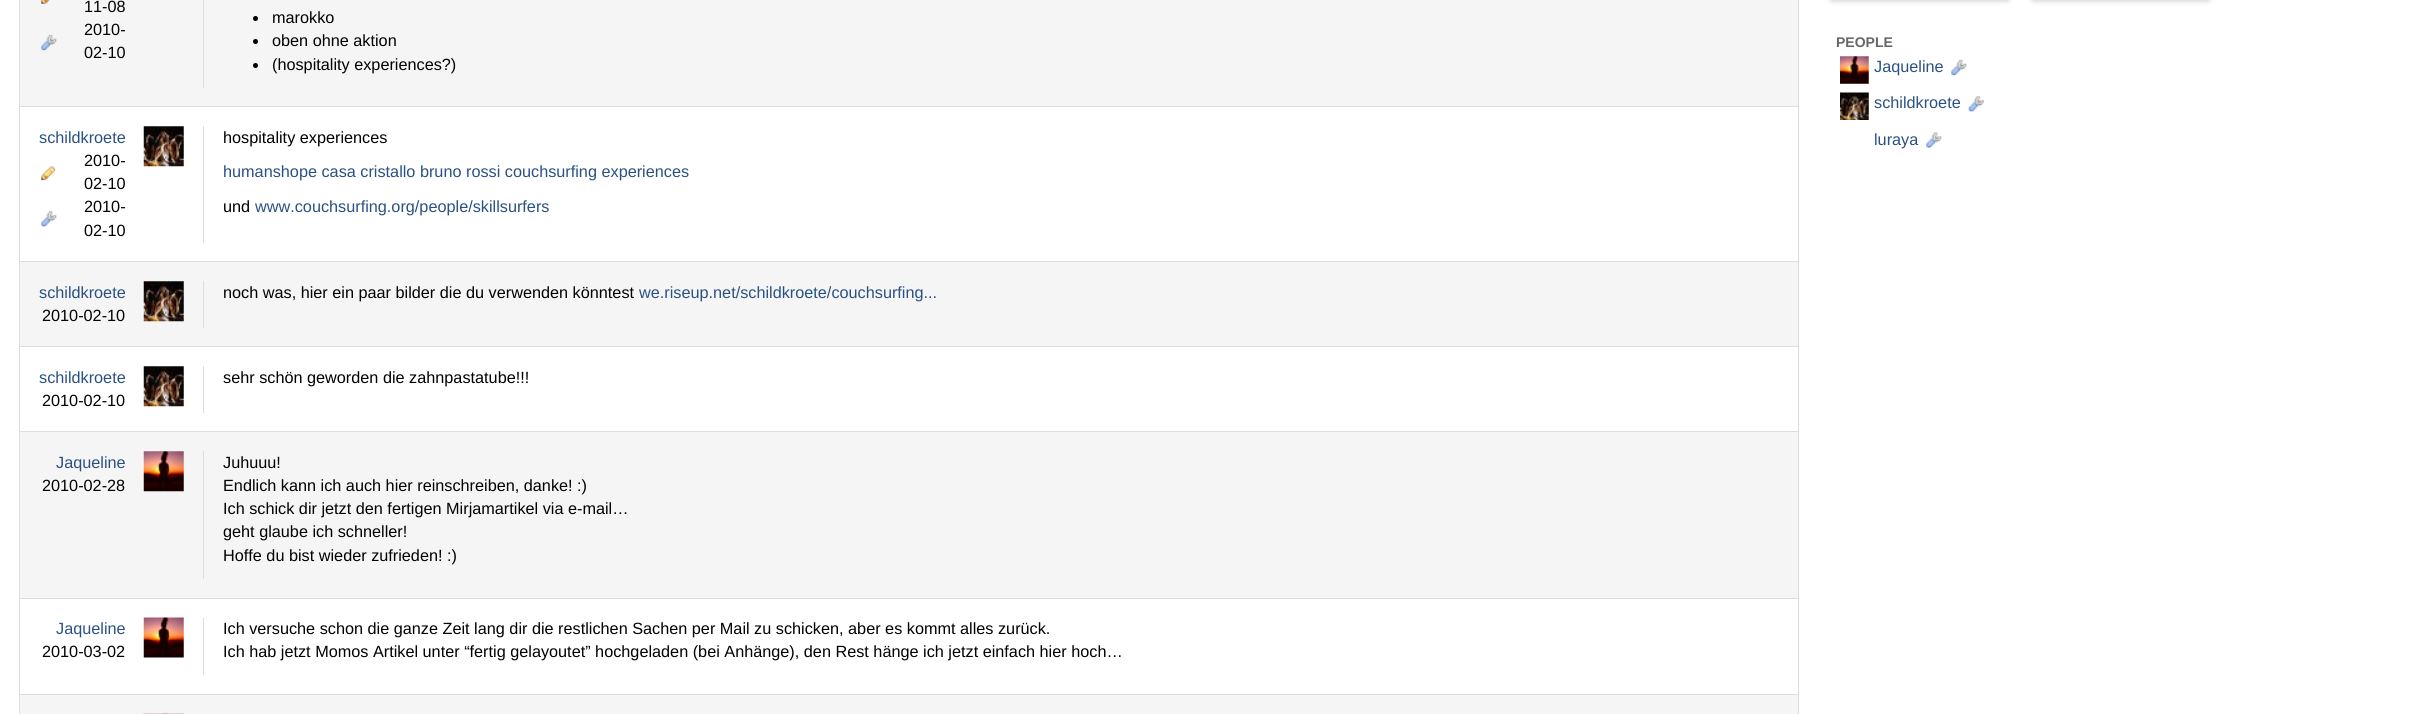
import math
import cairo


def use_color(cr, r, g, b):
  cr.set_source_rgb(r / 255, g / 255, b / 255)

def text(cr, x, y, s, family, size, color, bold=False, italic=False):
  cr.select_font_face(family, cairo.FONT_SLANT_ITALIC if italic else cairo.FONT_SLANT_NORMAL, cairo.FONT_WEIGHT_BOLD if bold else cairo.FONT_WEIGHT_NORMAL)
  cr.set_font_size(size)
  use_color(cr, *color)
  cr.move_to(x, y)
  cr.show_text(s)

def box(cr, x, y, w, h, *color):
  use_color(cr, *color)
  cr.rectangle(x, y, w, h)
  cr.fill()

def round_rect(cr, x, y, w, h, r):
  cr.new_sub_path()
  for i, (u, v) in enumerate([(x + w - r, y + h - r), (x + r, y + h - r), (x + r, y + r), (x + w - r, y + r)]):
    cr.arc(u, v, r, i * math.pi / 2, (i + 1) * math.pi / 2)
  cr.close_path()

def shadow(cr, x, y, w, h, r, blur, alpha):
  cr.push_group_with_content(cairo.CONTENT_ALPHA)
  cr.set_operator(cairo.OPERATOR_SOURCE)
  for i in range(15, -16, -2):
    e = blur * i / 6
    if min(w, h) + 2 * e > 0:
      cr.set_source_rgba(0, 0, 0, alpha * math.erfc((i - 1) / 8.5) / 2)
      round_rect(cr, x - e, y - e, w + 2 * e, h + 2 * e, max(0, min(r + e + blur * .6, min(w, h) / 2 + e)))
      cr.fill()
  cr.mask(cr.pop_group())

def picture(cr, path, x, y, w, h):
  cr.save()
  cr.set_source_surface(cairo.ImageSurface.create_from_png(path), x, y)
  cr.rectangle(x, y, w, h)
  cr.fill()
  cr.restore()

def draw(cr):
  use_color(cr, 255, 255, 255)
  cr.paint()
  cr.rectangle(19.5, -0.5, 1779, 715)
  use_color(cr, 221, 221, 221)
  cr.set_line_width(1)
  cr.stroke()
  box(cr, 20, 0, 1778, 106, 245, 245, 245)
  picture(cr, "img_01.png", 41, 0, 9, 4)
  picture(cr, "img_02.png", 41, 34, 16, 17)
  box(cr, 203, 0, 1, 88, 221, 221, 221)
  use_color(cr, 0, 0, 0)
  cr.arc(255.5, 18.5, 2.5, 0, 2 * math.pi)
  cr.fill()
  cr.arc(255.5, 41.5, 2.5, 0, 2 * math.pi)
  cr.fill()
  cr.arc(255.5, 65.5, 2.5, 0, 2 * math.pi)
  cr.fill()
  box(cr, 20, 106, 1778, 1, 221, 221, 221)
  picture(cr, "img_03.png", 143, 126, 41, 41)
  picture(cr, "img_04.png", 41, 166, 15, 15)
  picture(cr, "img_05.png", 41, 211, 16, 16)
  box(cr, 203, 126, 1, 117, 221, 221, 221)
  box(cr, 20, 262, 1778, 84, 245, 245, 245)
  box(cr, 20, 261, 1778, 1, 221, 221, 221)
  picture(cr, "img_06.png", 143, 281, 41, 41)
  box(cr, 203, 281, 1, 47, 221, 221, 221)
  box(cr, 20, 346, 1778, 1, 221, 221, 221)
  picture(cr, "img_03.png", 143, 366, 41, 41)
  box(cr, 203, 366, 1, 47, 221, 221, 221)
  box(cr, 20, 432, 1778, 166, 245, 245, 245)
  box(cr, 20, 431, 1778, 1, 221, 221, 221)
  picture(cr, "img_07.png", 143, 451, 41, 41)
  box(cr, 203, 451, 1, 128, 221, 221, 221)
  box(cr, 20, 598, 1778, 1, 221, 221, 221)
  picture(cr, "img_08.png", 143, 617, 41, 41)
  box(cr, 203, 618, 1, 57, 221, 221, 221)
  box(cr, 20, 695, 1778, 19, 245, 245, 245)
  box(cr, 20, 694, 1778, 1, 221, 221, 221)
  picture(cr, "img_09.png", 143, 713, 41, 1)
  use_color(cr, 0, 0, 0)
  shadow(cr, 1831, -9, 177, 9, 0, 3, 0.25)
  shadow(cr, 2033, -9, 176, 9, 0, 3, 0.25)
  picture(cr, "img_10.png", 1840, 56, 29, 28)
  picture(cr, "img_11.png", 1951, 59, 16, 17)
  picture(cr, "img_12.png", 1840, 92, 29, 28)
  picture(cr, "img_13.png", 1968, 96, 16, 16)
  picture(cr, "img_14.png", 1926, 132, 16, 16)
  text(cr, 84, 12, "11-08", "Liberation Sans", 16.25, (0, 0, 0))
  text(cr, 84, 35, "2010-", "Liberation Sans", 16.25, (0, 0, 0))
  text(cr, 84, 58, "02-10", "Liberation Sans", 16.25, (0, 0, 0))
  text(cr, 272, 23, "marokko", "Liberation Sans", 16.25, (0, 0, 0))
  text(cr, 272, 46, "oben ohne aktion", "Liberation Sans", 16.25, (0, 0, 0))
  text(cr, 272, 70, "(hospitality experiences?)", "Liberation Sans", 16.25, (0, 0, 0))
  text(cr, 39, 143, "schildkroete", "Liberation Sans", 16.25, (42, 81, 131))
  text(cr, 84, 166, "2010-", "Liberation Sans", 16.25, (0, 0, 0))
  text(cr, 84, 189, "02-10", "Liberation Sans", 16.25, (0, 0, 0))
  text(cr, 84, 212, "2010-", "Liberation Sans", 16.25, (0, 0, 0))
  text(cr, 84, 236, "02-10", "Liberation Sans", 16.25, (0, 0, 0))
  text(cr, 223, 143, "hospitality experiences", "Liberation Sans", 16.25, (0, 0, 0))
  text(cr, 223, 177, "humanshope casa cristallo bruno rossi couchsurfing experiences", "Liberation Sans", 16.25, (42, 81, 131))
  text(cr, 223, 212, "und", "Liberation Sans", 16.25, (0, 0, 0))
  text(cr, 255, 212, "www.couchsurfing.org/people/skillsurfers", "Liberation Sans", 16.25, (42, 81, 131))
  text(cr, 39, 298, "schildkroete", "Liberation Sans", 16.25, (42, 81, 131))
  text(cr, 42, 321, "2010-02-10", "Liberation Sans", 16.25, (0, 0, 0))
  text(cr, 223, 298, "noch was, hier ein paar bilder die du verwenden könntest", "Liberation Sans", 16.25, (0, 0, 0))
  text(cr, 639, 298, "we.riseup.net/schildkroete/couchsurfing...", "Liberation Sans", 16.25, (42, 81, 131))
  text(cr, 39, 383, "schildkroete", "Liberation Sans", 16.25, (42, 81, 131))
  text(cr, 42, 406, "2010-02-10", "Liberation Sans", 16.25, (0, 0, 0))
  text(cr, 223, 383, "sehr schön geworden die zahnpastatube!!!", "Liberation Sans", 16.25, (0, 0, 0))
  text(cr, 56, 468, "Jaqueline", "Liberation Sans", 16.25, (42, 81, 131))
  text(cr, 42, 491, "2010-02-28", "Liberation Sans", 16.25, (0, 0, 0))
  text(cr, 223, 468, "Juhuuu!", "Liberation Sans", 16.25, (0, 0, 0))
  text(cr, 223, 491, "Endlich kann ich auch hier reinschreiben, danke! :)", "Liberation Sans", 16.25, (0, 0, 0))
  text(cr, 223, 514, "Ich schick dir jetzt den fertigen Mirjamartikel via e-mail…", "Liberation Sans", 16.25, (0, 0, 0))
  text(cr, 223, 537, "geht glaube ich schneller!", "Liberation Sans", 16.25, (0, 0, 0))
  text(cr, 223, 561, "Hoffe du bist wieder zufrieden! :)", "Liberation Sans", 16.25, (0, 0, 0))
  text(cr, 56, 634, "Jaqueline", "Liberation Sans", 16.25, (42, 81, 131))
  text(cr, 42, 657, "2010-03-02", "Liberation Sans", 16.25, (0, 0, 0))
  text(cr, 223, 634, "Ich versuche schon die ganze Zeit lang dir die restlichen Sachen per Mail zu schicken, aber es kommt alles zurück.", "Liberation Sans", 16.25, (0, 0, 0))
  text(cr, 223, 657, "Ich hab jetzt Momos Artikel unter “fertig gelayoutet” hochgeladen (bei Anhänge), den Rest hänge ich jetzt einfach hier hoch…", "Liberation Sans", 16.25, (0, 0, 0))
  text(cr, 1836, 47, "PEOPLE", "Liberation Sans", 14, (102, 102, 102), bold=True)
  text(cr, 1874, 72, "Jaqueline", "Liberation Sans", 16.25, (42, 81, 131))
  text(cr, 1874, 108, "schildkroete", "Liberation Sans", 16.25, (42, 81, 131))
  text(cr, 1874, 145, "luraya", "Liberation Sans", 16.25, (42, 81, 131))


surface = cairo.ImageSurface(cairo.FORMAT_RGB24, 2422, 714)
cr = cairo.Context(surface)
options = cairo.FontOptions()
options.set_hint_metrics(cairo.HINT_METRICS_OFF)
options.set_hint_style(cairo.HINT_STYLE_NONE)
cr.set_font_options(options)
cr.set_miter_limit(4)
draw(cr)
surface.write_to_png("out.png")
